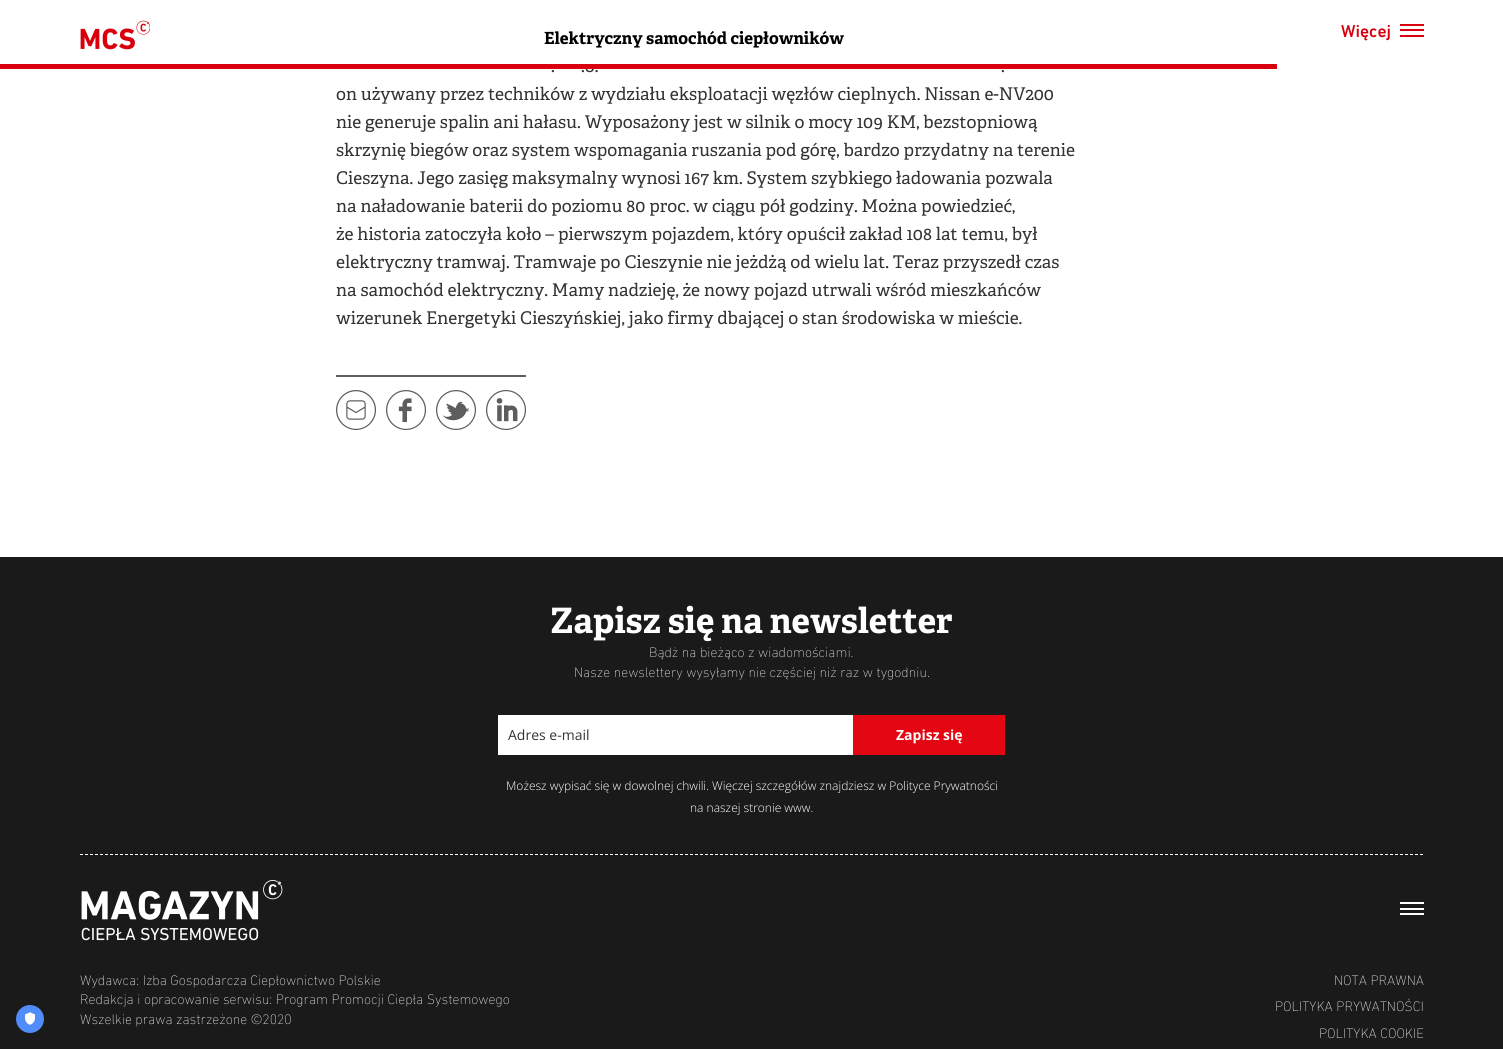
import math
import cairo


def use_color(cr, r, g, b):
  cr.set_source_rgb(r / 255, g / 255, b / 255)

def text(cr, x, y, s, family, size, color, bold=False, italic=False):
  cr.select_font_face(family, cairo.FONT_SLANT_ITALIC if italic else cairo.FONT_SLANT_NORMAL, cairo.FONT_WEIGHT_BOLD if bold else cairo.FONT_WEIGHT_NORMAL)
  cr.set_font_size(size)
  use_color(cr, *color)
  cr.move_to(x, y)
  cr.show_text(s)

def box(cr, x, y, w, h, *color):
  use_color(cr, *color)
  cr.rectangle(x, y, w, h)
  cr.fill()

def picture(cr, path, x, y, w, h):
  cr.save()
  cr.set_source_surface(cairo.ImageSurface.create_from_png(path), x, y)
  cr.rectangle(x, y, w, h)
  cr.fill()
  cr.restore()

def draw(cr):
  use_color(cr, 255, 255, 255)
  cr.paint()
  picture(cr, "img_01.png", 80, 20, 70, 30)
  box(cr, 1400, 24, 24, 2, 217, 0, 13)
  box(cr, 1400, 29, 24, 2, 217, 0, 13)
  box(cr, 1400, 35, 24, 2, 217, 0, 13)
  box(cr, 336, 375, 190, 2, 93, 93, 93)
  picture(cr, "img_02.png", 336, 390, 40, 40)
  picture(cr, "img_03.png", 386, 390, 40, 40)
  picture(cr, "img_04.png", 436, 390, 40, 40)
  picture(cr, "img_05.png", 486, 390, 40, 40)
  box(cr, 0, 557, 1503, 492, 26, 26, 26)
  use_color(cr, 80, 141, 250)
  cr.arc(30, 1019, 14, 0, 2 * math.pi)
  cr.fill()
  picture(cr, "img_06.png", 25, 1012, 10, 13)
  box(cr, 498, 715, 355, 40, 255, 255, 255)
  box(cr, 853, 715, 152, 40, 227, 6, 19)
  cr.new_path()
  cr.move_to(80, 854.5)
  cr.line_to(1424, 854.5)
  use_color(cr, 255, 255, 255)
  cr.set_line_width(1)
  cr.set_dash([3, 2])
  cr.stroke()
  picture(cr, "img_07.png", 81, 880, 202, 61)
  box(cr, 1400, 902, 24, 2, 255, 255, 255)
  box(cr, 1400, 908, 24, 2, 255, 255, 255)
  box(cr, 1400, 913, 24, 2, 255, 255, 255)
  text(cr, 544, 44, "Elektryczny samochód ciepłowników", "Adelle", 16.75, (0, 0, 0), bold=True)
  text(cr, 1341, 37, "Więcej", "DIN Next Medium", 17.5, (217, 0, 13))
  text(cr, 551, 72, ".", "Adelle", 17.5, (51, 51, 51))
  text(cr, 581, 72, ".o.", "Adelle", 17.5, (51, 51, 51))
  box(cr, 585, 62, 9, 7, 255, 255, 255)
  box(cr, 0, 64, 1277, 5, 217, 0, 13)
  text(cr, 1001, 72, ".", "Adelle", 17.5, (51, 51, 51))
  text(cr, 336, 100, "on używany przez techników z wydziału eksploatacji węzłów cieplnych. Nissan e-NV200", "Adelle", 17.5, (51, 51, 51))
  text(cr, 336, 128, "nie generuje spalin ani hałasu. Wyposażony jest w silnik o mocy 109 KM, bezstopniową", "Adelle", 17.5, (51, 51, 51))
  text(cr, 336, 156, "skrzynię biegów oraz system wspomagania ruszania pod górę, bardzo przydatny na terenie", "Adelle", 17.5, (51, 51, 51))
  text(cr, 336, 184, "Cieszyna. Jego zasięg maksymalny wynosi 167 km. System szybkiego ładowania pozwala", "Adelle", 17.5, (51, 51, 51))
  text(cr, 336, 212, "na naładowanie baterii do poziomu 80 proc. w ciągu pół godziny. Można powiedzieć,", "Adelle", 17.5, (51, 51, 51))
  text(cr, 336, 240, "że historia zatoczyła koło – pierwszym pojazdem, który opuścił zakład 108 lat temu, był", "Adelle", 17.5, (51, 51, 51))
  text(cr, 336, 268, "elektryczny tramwaj. Tramwaje po Cieszynie nie jeżdżą od wielu lat. Teraz przyszedł czas", "Adelle", 17.5, (51, 51, 51))
  text(cr, 336, 296, "na samochód elektryczny. Mamy nadzieję, że nowy pojazd utrwali wśród mieszkańców", "Adelle", 17.5, (51, 51, 51))
  text(cr, 336, 324, "wizerunek Energetyki Cieszyńskiej, jako firmy dbającej o stan środowiska w mieście.", "Adelle", 17.5, (51, 51, 51))
  text(cr, 550, 633, "Zapisz się na newsletter", "Adelle", 35, (255, 255, 255), bold=True)
  text(cr, 649, 657, "Bądż na bieżąco z wiadomościami.", "DIN Next ExtraLight", 14, (255, 255, 255))
  text(cr, 574, 677, "Nasze newslettery wysyłamy nie częściej niż raz w tygodniu.", "DIN Next ExtraLight", 14, (255, 255, 255))
  text(cr, 508, 740, "Adres e-mail", "Open Sans", 14, (51, 51, 51))
  text(cr, 896, 740, "Zapisz się", "Open Sans", 14, (255, 255, 255), bold=True)
  text(cr, 506, 790, "Możesz wypisać się w dowolnej chwili. Więczej szczegółów znajdziesz w Polityce Prywatności", "Open Sans Light", 12, (255, 255, 255))
  text(cr, 690, 812, "na naszej stronie www.", "Open Sans Light", 12, (255, 255, 255))
  text(cr, 80, 985, "Wydawca: Izba Gospodarcza Ciepłownictwo Polskie", "DIN Next ExtraLight", 14, (255, 255, 255))
  text(cr, 80, 1004, "Redakcja i opracowanie serwisu: Program Promocji Ciepła Systemowego", "DIN Next ExtraLight", 14, (255, 255, 255))
  text(cr, 80, 1024, "Wszelkie prawa zastrzeżone ©2020", "DIN Next ExtraLight", 14, (255, 255, 255))
  text(cr, 1334, 985, "NOTA PRAWNA", "DIN Next ExtraLight", 14, (255, 255, 255))
  text(cr, 1275, 1011, "POLITYKA PRYWATNOŚCI", "DIN Next ExtraLight", 14, (255, 255, 255))
  text(cr, 1319, 1038, "POLITYKA COOKIE", "DIN Next ExtraLight", 14, (255, 255, 255))


surface = cairo.ImageSurface(cairo.FORMAT_RGB24, 1503, 1049)
cr = cairo.Context(surface)
options = cairo.FontOptions()
options.set_hint_metrics(cairo.HINT_METRICS_OFF)
options.set_hint_style(cairo.HINT_STYLE_NONE)
cr.set_font_options(options)
cr.set_miter_limit(4)
draw(cr)
surface.write_to_png("out.png")
